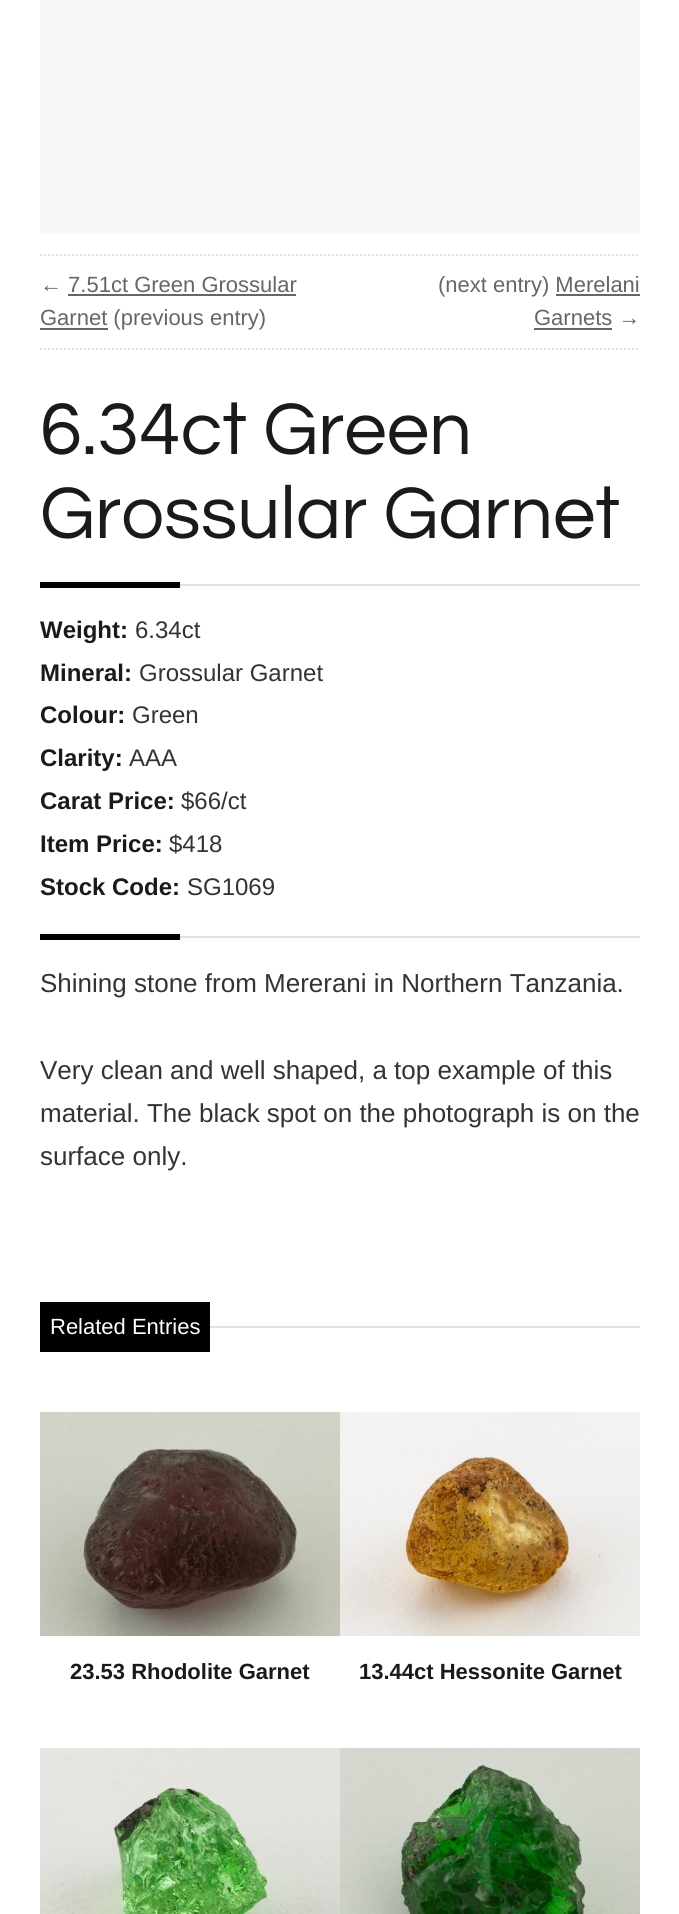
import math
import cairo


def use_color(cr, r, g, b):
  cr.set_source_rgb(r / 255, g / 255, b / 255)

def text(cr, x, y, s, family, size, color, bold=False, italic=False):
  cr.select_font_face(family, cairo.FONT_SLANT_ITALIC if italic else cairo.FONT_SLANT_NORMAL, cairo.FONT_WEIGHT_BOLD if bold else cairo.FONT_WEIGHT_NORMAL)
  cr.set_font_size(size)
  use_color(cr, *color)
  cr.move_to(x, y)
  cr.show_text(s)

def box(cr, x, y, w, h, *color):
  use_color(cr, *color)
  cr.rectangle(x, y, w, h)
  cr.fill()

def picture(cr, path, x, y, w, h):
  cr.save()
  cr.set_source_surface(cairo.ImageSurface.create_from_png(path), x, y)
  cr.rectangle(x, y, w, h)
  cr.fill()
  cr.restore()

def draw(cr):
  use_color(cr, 255, 255, 255)
  cr.paint()
  box(cr, 40, 0, 600, 234, 248, 248, 248)
  cr.new_path()
  cr.move_to(40, 255)
  cr.line_to(640, 255)
  use_color(cr, 225, 225, 225)
  cr.set_dash([2, 2])
  cr.stroke()
  cr.new_path()
  cr.move_to(40, 349)
  cr.line_to(640, 349)
  cr.stroke()
  box(cr, 68, 294, 228, 2, 102, 102, 102)
  box(cr, 40, 328, 68, 2, 102, 102, 102)
  box(cr, 556, 294, 84, 2, 102, 102, 102)
  box(cr, 534, 328, 78, 2, 102, 102, 102)
  box(cr, 40, 582, 140, 6, 0, 0, 0)
  box(cr, 180, 584, 460, 2, 225, 225, 225)
  box(cr, 40, 934, 140, 6, 0, 0, 0)
  box(cr, 180, 936, 460, 2, 225, 225, 225)
  box(cr, 40, 1302, 170, 50, 0, 0, 0)
  box(cr, 210, 1326, 430, 2, 225, 225, 225)
  picture(cr, "img_01.png", 40, 1412, 300, 224)
  picture(cr, "img_02.png", 340, 1412, 300, 224)
  picture(cr, "img_03.png", 40, 1748, 300, 166)
  picture(cr, "img_04.png", 340, 1748, 300, 166)
  text(cr, 40, 292, "← 7.51ct Green Grossular", "Liberation Sans", 22, (102, 102, 102))
  text(cr, 40, 325, "Garnet (previous entry)", "Liberation Sans", 22, (102, 102, 102))
  text(cr, 438, 292, "(next entry) Merelani", "Liberation Sans", 22, (102, 102, 102))
  text(cr, 534, 325, "Garnets →", "Liberation Sans", 22, (102, 102, 102))
  text(cr, 40, 454, "6.34ct Green", "Questrial", 76, (26, 26, 26))
  text(cr, 40, 538, "Grossular Garnet", "Questrial", 76, (26, 26, 26))
  text(cr, 40, 638, "Weight:", "Liberation Sans", 24, (26, 26, 26), bold=True)
  text(cr, 135, 638, "6.34ct", "Liberation Sans", 24, (51, 51, 51))
  text(cr, 40, 681, "Mineral:", "Liberation Sans", 24, (26, 26, 26), bold=True)
  text(cr, 139, 681, "Grossular Garnet", "Liberation Sans", 24, (51, 51, 51))
  text(cr, 40, 723, "Colour:", "Liberation Sans", 24, (26, 26, 26), bold=True)
  text(cr, 132, 723, "Green", "Liberation Sans", 24, (51, 51, 51))
  text(cr, 40, 766, "Clarity:", "Liberation Sans", 24, (26, 26, 26), bold=True)
  text(cr, 129, 766, "AAA", "Liberation Sans", 24, (51, 51, 51))
  text(cr, 40, 809, "Carat Price:", "Liberation Sans", 24, (26, 26, 26), bold=True)
  text(cr, 181, 809, "$66/ct", "Liberation Sans", 24, (51, 51, 51))
  text(cr, 40, 852, "Item Price:", "Liberation Sans", 24, (26, 26, 26), bold=True)
  text(cr, 169, 852, "$418", "Liberation Sans", 24, (51, 51, 51))
  text(cr, 40, 895, "Stock Code:", "Liberation Sans", 24, (26, 26, 26), bold=True)
  text(cr, 187, 895, "SG1069", "Liberation Sans", 24, (51, 51, 51))
  text(cr, 40, 992, "Shining stone from Mererani in Northern Tanzania.", "Liberation Sans", 26, (51, 51, 51))
  text(cr, 40, 1079, "Very clean and well shaped, a top example of this", "Liberation Sans", 26, (51, 51, 51))
  text(cr, 40, 1122, "material. The black spot on the photograph is on the", "Liberation Sans", 26, (51, 51, 51))
  text(cr, 40, 1165, "surface only.", "Liberation Sans", 26, (51, 51, 51))
  text(cr, 50, 1334, "Related Entries", "Liberation Sans", 22, (255, 255, 255))
  text(cr, 70, 1679, "23.53 Rhodolite Garnet", "Liberation Sans", 22, (26, 26, 26), bold=True)
  text(cr, 359, 1679, "13.44ct Hessonite Garnet", "Liberation Sans", 22, (26, 26, 26), bold=True)


surface = cairo.ImageSurface(cairo.FORMAT_RGB24, 679, 1914)
cr = cairo.Context(surface)
options = cairo.FontOptions()
options.set_hint_metrics(cairo.HINT_METRICS_OFF)
options.set_hint_style(cairo.HINT_STYLE_NONE)
cr.set_font_options(options)
cr.set_miter_limit(4)
draw(cr)
surface.write_to_png("out.png")
